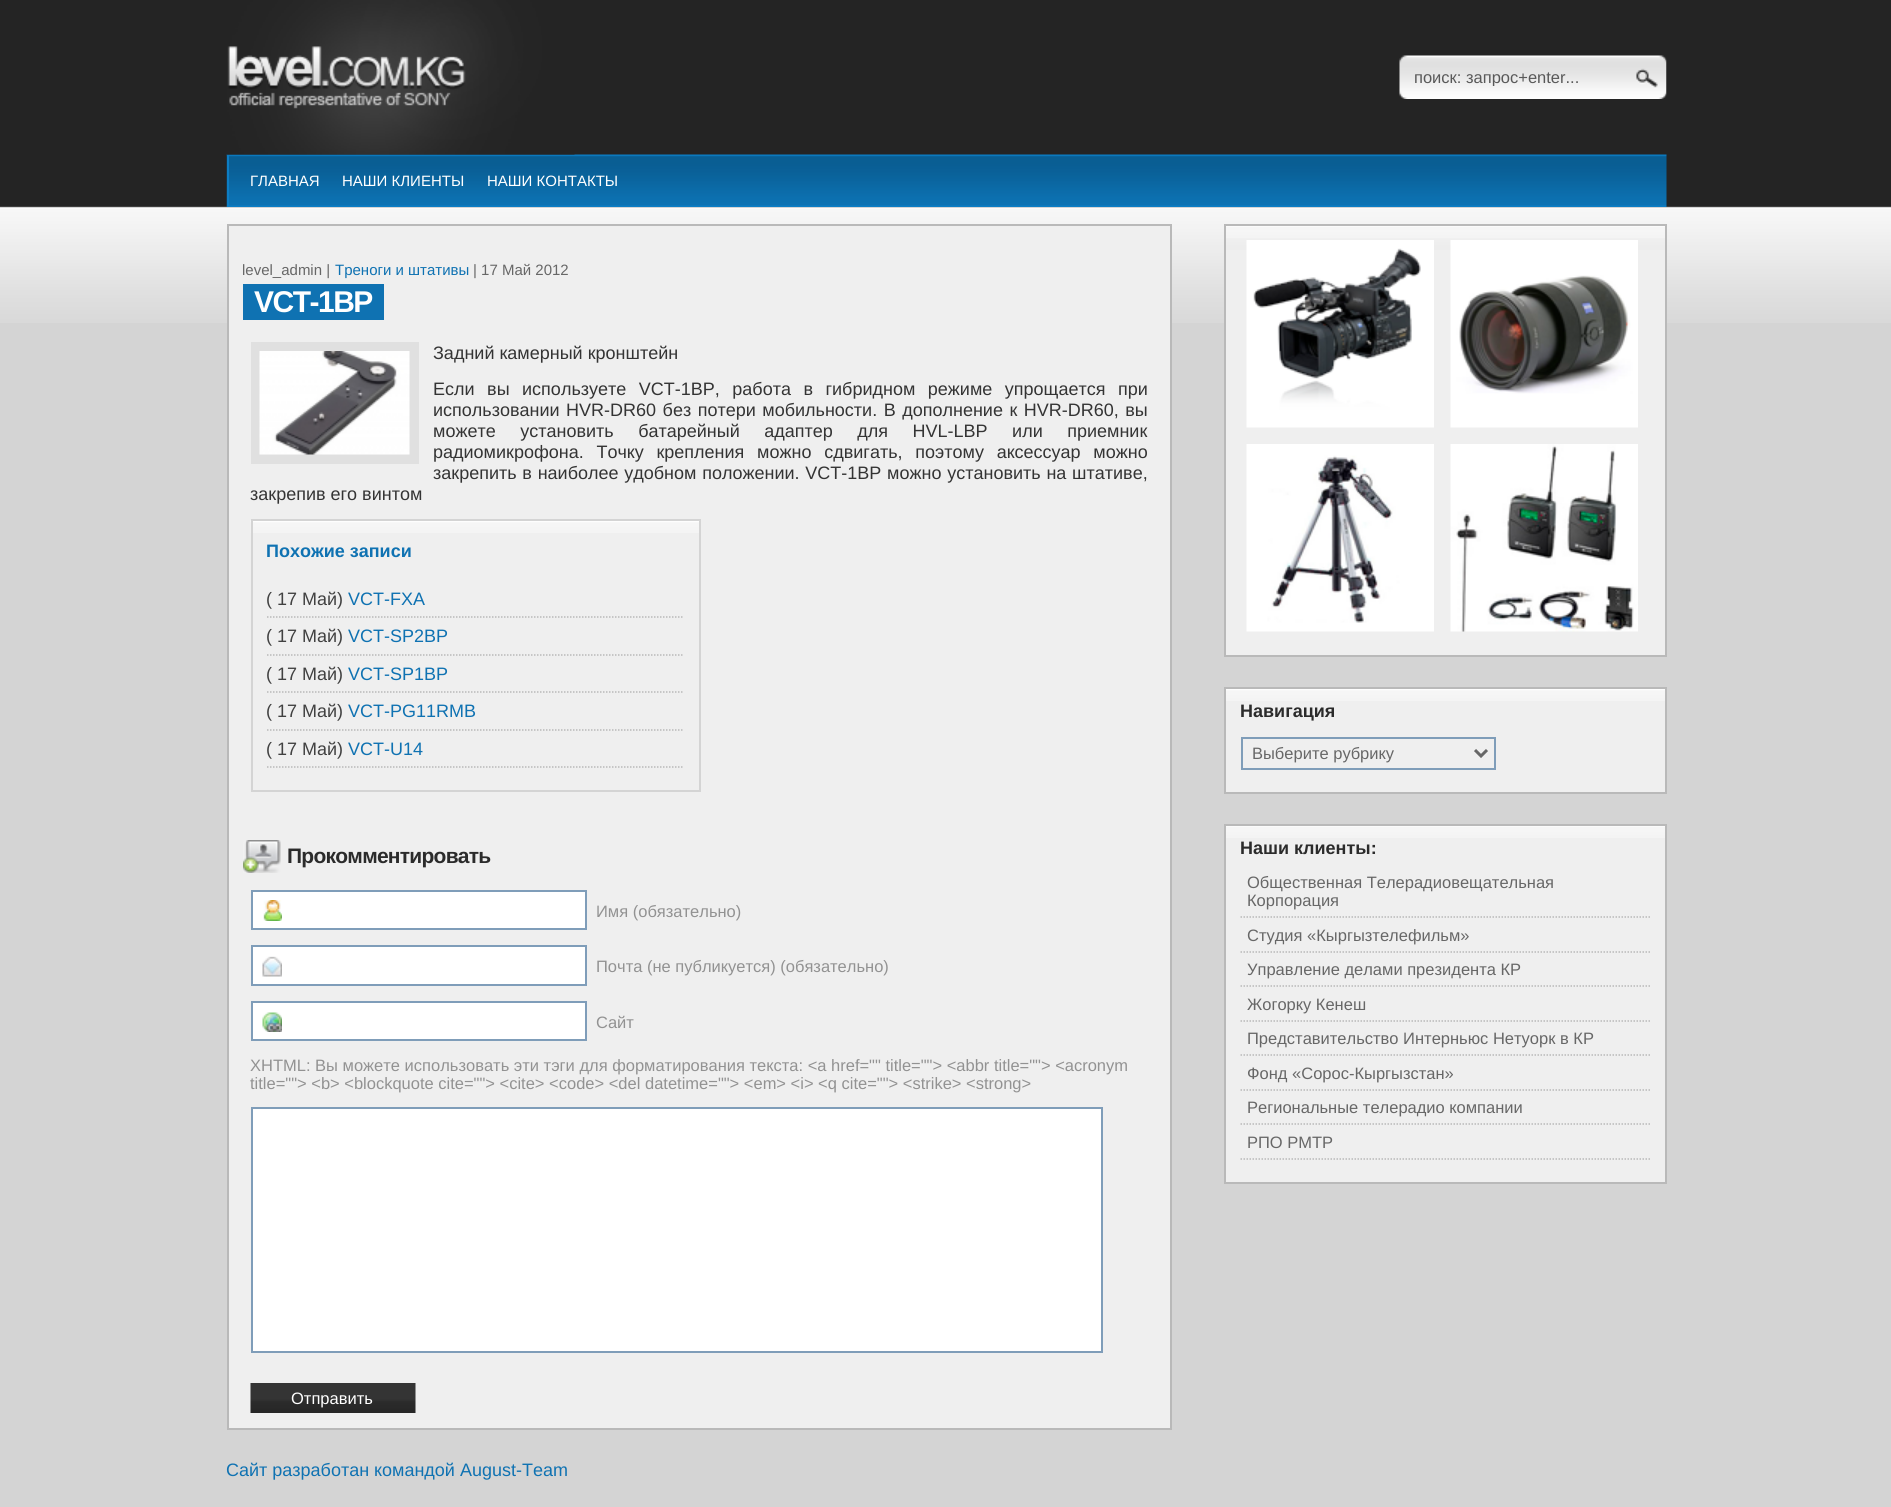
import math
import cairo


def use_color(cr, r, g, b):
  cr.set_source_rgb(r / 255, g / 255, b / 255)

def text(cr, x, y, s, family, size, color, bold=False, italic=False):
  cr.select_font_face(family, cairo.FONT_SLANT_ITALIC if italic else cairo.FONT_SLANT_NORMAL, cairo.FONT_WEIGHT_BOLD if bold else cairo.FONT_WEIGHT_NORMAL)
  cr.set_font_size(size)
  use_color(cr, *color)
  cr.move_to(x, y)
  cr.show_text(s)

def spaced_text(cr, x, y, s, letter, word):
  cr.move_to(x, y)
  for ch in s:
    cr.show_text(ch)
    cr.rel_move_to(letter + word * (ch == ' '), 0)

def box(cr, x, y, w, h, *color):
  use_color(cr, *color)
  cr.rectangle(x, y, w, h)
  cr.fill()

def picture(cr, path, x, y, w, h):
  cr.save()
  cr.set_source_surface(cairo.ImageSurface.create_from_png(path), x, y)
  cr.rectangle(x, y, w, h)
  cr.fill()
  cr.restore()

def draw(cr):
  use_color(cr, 212, 212, 212)
  cr.paint()
  picture(cr, "img_01.png", 0, 0, 1891, 323)
  picture(cr, "img_04.png", 226, 154, 1441, 53)
  picture(cr, "img_02.png", 227, 0, 348, 155)
  picture(cr, "img_03.png", 1399, 55, 268, 44)
  box(cr, 227, 155, 2, 52, 12, 125, 196)
  use_color(cr, 239, 239, 239)
  cr.rectangle(228, 225, 943, 1204)
  cr.fill_preserve()
  use_color(cr, 185, 185, 185)
  cr.stroke()
  box(cr, 243, 284, 141, 36, 15, 114, 178)
  box(cr, 251, 342, 168, 122, 224, 224, 224)
  picture(cr, "img_05.png", 259, 351, 151, 104)
  picture(cr, "img_06.png", 250, 520, 449, 13)
  cr.rectangle(252, 520, 448, 271)
  use_color(cr, 212, 212, 212)
  cr.stroke()
  cr.new_path()
  cr.move_to(267, 617)
  cr.line_to(684, 617)
  use_color(cr, 185, 185, 185)
  cr.set_line_width(1.5)
  cr.set_dash([1.5, 1.5])
  cr.stroke()
  cr.new_path()
  cr.move_to(267, 655)
  cr.line_to(684, 655)
  cr.stroke()
  cr.new_path()
  cr.move_to(267, 692)
  cr.line_to(684, 692)
  cr.stroke()
  cr.new_path()
  cr.move_to(267, 730)
  cr.line_to(684, 730)
  cr.stroke()
  cr.new_path()
  cr.move_to(267, 767)
  cr.line_to(684, 767)
  cr.stroke()
  picture(cr, "img_07.png", 243, 840, 38, 33)
  box(cr, 253, 892, 332, 36, 255, 255, 255)
  picture(cr, "img_08.png", 263, 900, 19, 21)
  cr.rectangle(252, 891, 334, 38)
  use_color(cr, 127, 157, 185)
  cr.set_line_width(2)
  cr.set_dash([])
  cr.stroke()
  box(cr, 253, 947, 332, 37, 255, 255, 255)
  picture(cr, "img_09.png", 262, 956, 20, 21)
  cr.rectangle(252, 946, 334, 39)
  use_color(cr, 127, 157, 185)
  cr.stroke()
  box(cr, 253, 1003, 332, 36, 255, 255, 255)
  picture(cr, "img_10.png", 262, 1012, 20, 20)
  cr.rectangle(252, 1002, 334, 38)
  use_color(cr, 127, 157, 185)
  cr.stroke()
  use_color(cr, 255, 255, 255)
  cr.rectangle(252, 1108, 850, 244)
  cr.fill_preserve()
  use_color(cr, 127, 157, 185)
  cr.stroke()
  picture(cr, "img_11.png", 250, 1383, 166, 30)
  box(cr, 1226, 250, 439, 405, 239, 239, 239)
  picture(cr, "img_12.png", 1226, 226, 439, 12)
  cr.rectangle(1225, 225, 441, 431)
  use_color(cr, 185, 185, 185)
  cr.stroke()
  picture(cr, "img_13.png", 1246, 240, 188, 188)
  picture(cr, "img_14.png", 1450, 240, 188, 188)
  picture(cr, "img_15.png", 1246, 444, 188, 188)
  picture(cr, "img_16.png", 1450, 444, 188, 188)
  box(cr, 1226, 701, 439, 91, 239, 239, 239)
  picture(cr, "img_17.png", 1226, 689, 439, 12)
  cr.rectangle(1225, 688, 441, 105)
  use_color(cr, 185, 185, 185)
  cr.stroke()
  cr.rectangle(1242, 738, 253, 31)
  use_color(cr, 127, 157, 185)
  cr.stroke()
  cr.new_path()
  cr.move_to(1475, 750)
  cr.line_to(1481, 756)
  cr.line_to(1487, 750)
  use_color(cr, 103, 103, 103)
  cr.set_line_width(3)
  cr.stroke()
  box(cr, 1226, 838, 439, 344, 239, 239, 239)
  picture(cr, "img_12.png", 1226, 826, 439, 12)
  cr.rectangle(1225, 825, 441, 358)
  use_color(cr, 185, 185, 185)
  cr.set_line_width(2)
  cr.stroke()
  cr.new_path()
  cr.move_to(1240.5, 917)
  cr.line_to(1650, 917)
  cr.set_line_width(1.5)
  cr.set_dash([1.5, 1.5])
  cr.stroke()
  cr.new_path()
  cr.move_to(1240.5, 952)
  cr.line_to(1650, 952)
  cr.stroke()
  cr.new_path()
  cr.move_to(1240.5, 986)
  cr.line_to(1650, 986)
  cr.stroke()
  cr.new_path()
  cr.move_to(1240.5, 1021)
  cr.line_to(1650, 1021)
  cr.stroke()
  cr.new_path()
  cr.move_to(1240.5, 1055)
  cr.line_to(1650, 1055)
  cr.stroke()
  cr.new_path()
  cr.move_to(1240.5, 1090)
  cr.line_to(1650, 1090)
  cr.stroke()
  cr.new_path()
  cr.move_to(1240.5, 1124)
  cr.line_to(1650, 1124)
  cr.stroke()
  cr.new_path()
  cr.move_to(1240.5, 1159)
  cr.line_to(1650, 1159)
  cr.stroke()
  cr.save()
  cr.rectangle(1415, 68, 213, 18)
  cr.clip()
  text(cr, 1414, 83, "поиск: запрос+enter...", "Liberation Sans", 16.5, (89, 89, 89))
  cr.restore()
  text(cr, 250, 186, "ГЛАВНАЯ", "Liberation Sans", 15, (255, 255, 255))
  text(cr, 342, 186, "НАШИ КЛИЕНТЫ", "Liberation Sans", 15, (255, 255, 255))
  text(cr, 487, 186, "НАШИ КОНТАКТЫ", "Liberation Sans", 15, (255, 255, 255))
  text(cr, 242, 275, "level_admin |", "Liberation Sans", 15, (103, 103, 103))
  text(cr, 335, 275, "Треноги и штативы", "Liberation Sans", 15, (15, 114, 178))
  text(cr, 473, 275, "| 17 Май 2012", "Liberation Sans", 15, (103, 103, 103))
  cr.select_font_face("Liberation Sans", cairo.FONT_SLANT_NORMAL, cairo.FONT_WEIGHT_BOLD)
  cr.set_font_size(30)
  use_color(cr, 255, 255, 255)
  spaced_text(cr, 254, 312, "VCT-1BP", -1.5, 0)
  text(cr, 433, 359, "Задний камерный кронштейн", "Liberation Sans", 18, (52, 52, 52))
  spaced_text(cr, 433, 395, "Если вы используете VCT-1BP, работа в гибридном режиме упрощается при", 0, 7.5)
  spaced_text(cr, 433, 416, "использовании HVR-DR60 без потери мобильности. В дополнение к HVR-DR60, вы", 0, 1.5)
  spaced_text(cr, 433, 437, "можете установить батарейный адаптер для HVL-LBP или приемник", 0, 19.5)
  spaced_text(cr, 433, 458, "радиомикрофона. Точку крепления можно сдвигать, поэтому аксессуар можно", 0, 7.75)
  spaced_text(cr, 433, 479, "закрепить в наиболее удобном положении. VCT-1BP можно установить на штативе,", 0, 0.75)
  text(cr, 250, 500, "закрепив его винтом", "Liberation Sans", 18, (52, 52, 52))
  text(cr, 266, 557, "Похожие записи", "Liberation Sans", 18, (15, 114, 178), bold=True)
  text(cr, 266, 605, "( 17 Май)", "Liberation Sans", 18, (65, 65, 65))
  text(cr, 348, 605, "VCT-FXA", "Liberation Sans", 18, (15, 114, 178))
  text(cr, 266, 642, "( 17 Май)", "Liberation Sans", 18, (65, 65, 65))
  text(cr, 348, 642, "VCT-SP2BP", "Liberation Sans", 18, (15, 114, 178))
  text(cr, 266, 680, "( 17 Май)", "Liberation Sans", 18, (65, 65, 65))
  text(cr, 348, 680, "VCT-SP1BP", "Liberation Sans", 18, (15, 114, 178))
  text(cr, 266, 717, "( 17 Май)", "Liberation Sans", 18, (65, 65, 65))
  text(cr, 348, 717, "VCT-PG11RMB", "Liberation Sans", 18, (15, 114, 178))
  text(cr, 266, 755, "( 17 Май)", "Liberation Sans", 18, (65, 65, 65))
  text(cr, 348, 755, "VCT-U14", "Liberation Sans", 18, (15, 114, 178))
  cr.select_font_face("Liberation Sans", cairo.FONT_SLANT_NORMAL, cairo.FONT_WEIGHT_BOLD)
  cr.set_font_size(21)
  use_color(cr, 43, 43, 43)
  spaced_text(cr, 287, 863, "Прокомментировать", -0.75, 0)
  text(cr, 596, 917, "Имя (обязательно)", "Liberation Sans", 16.5, (146, 146, 146))
  text(cr, 596, 972, "Почта (не публикуется) (обязательно)", "Liberation Sans", 16.5, (146, 146, 146))
  text(cr, 596, 1028, "Сайт", "Liberation Sans", 16.5, (146, 146, 146))
  text(cr, 250, 1071, "XHTML: Вы можете использовать эти тэги для форматирования текста: <a href=\"\" title=\"\"> <abbr title=\"\"> <acronym", "Liberation Sans", 16.5, (146, 146, 146))
  text(cr, 250, 1089, "title=\"\"> <b> <blockquote cite=\"\"> <cite> <code> <del datetime=\"\"> <em> <i> <q cite=\"\"> <strike> <strong>", "Liberation Sans", 16.5, (146, 146, 146))
  text(cr, 291, 1404, "Отправить", "Liberation Sans", 16.5, (255, 255, 255))
  text(cr, 1240, 717, "Навигация", "Liberation Sans", 18, (43, 43, 43), bold=True)
  text(cr, 1252, 759, "Выберите рубрику", "Liberation Sans", 16.5, (103, 103, 103))
  text(cr, 1240, 854, "Наши клиенты:", "Liberation Sans", 18, (43, 43, 43), bold=True)
  text(cr, 1247, 888, "Общественная Телерадиовещательная", "Liberation Sans", 16.5, (103, 103, 103))
  text(cr, 1247, 906, "Корпорация", "Liberation Sans", 16.5, (103, 103, 103))
  text(cr, 1247, 941, "Студия «Кыргызтелефильм»", "Liberation Sans", 16.5, (103, 103, 103))
  text(cr, 1247, 975, "Управление делами президента КР", "Liberation Sans", 16.5, (103, 103, 103))
  text(cr, 1247, 1010, "Жогорку Кенеш", "Liberation Sans", 16.5, (103, 103, 103))
  text(cr, 1247, 1044, "Представительство Интерньюс Нетуорк в КР", "Liberation Sans", 16.5, (103, 103, 103))
  text(cr, 1247, 1079, "Фонд «Сорос-Кыргызстан»", "Liberation Sans", 16.5, (103, 103, 103))
  text(cr, 1247, 1113, "Региональные телерадио компании", "Liberation Sans", 16.5, (103, 103, 103))
  text(cr, 1247, 1148, "РПО РМТР", "Liberation Sans", 16.5, (103, 103, 103))
  text(cr, 226, 1476, "Сайт разработан командой August-Team", "Liberation Sans", 18, (15, 114, 178))


surface = cairo.ImageSurface(cairo.FORMAT_RGB24, 1891, 1507)
cr = cairo.Context(surface)
options = cairo.FontOptions()
options.set_hint_metrics(cairo.HINT_METRICS_OFF)
options.set_hint_style(cairo.HINT_STYLE_NONE)
cr.set_font_options(options)
cr.set_miter_limit(4)
draw(cr)
surface.write_to_png("out.png")
